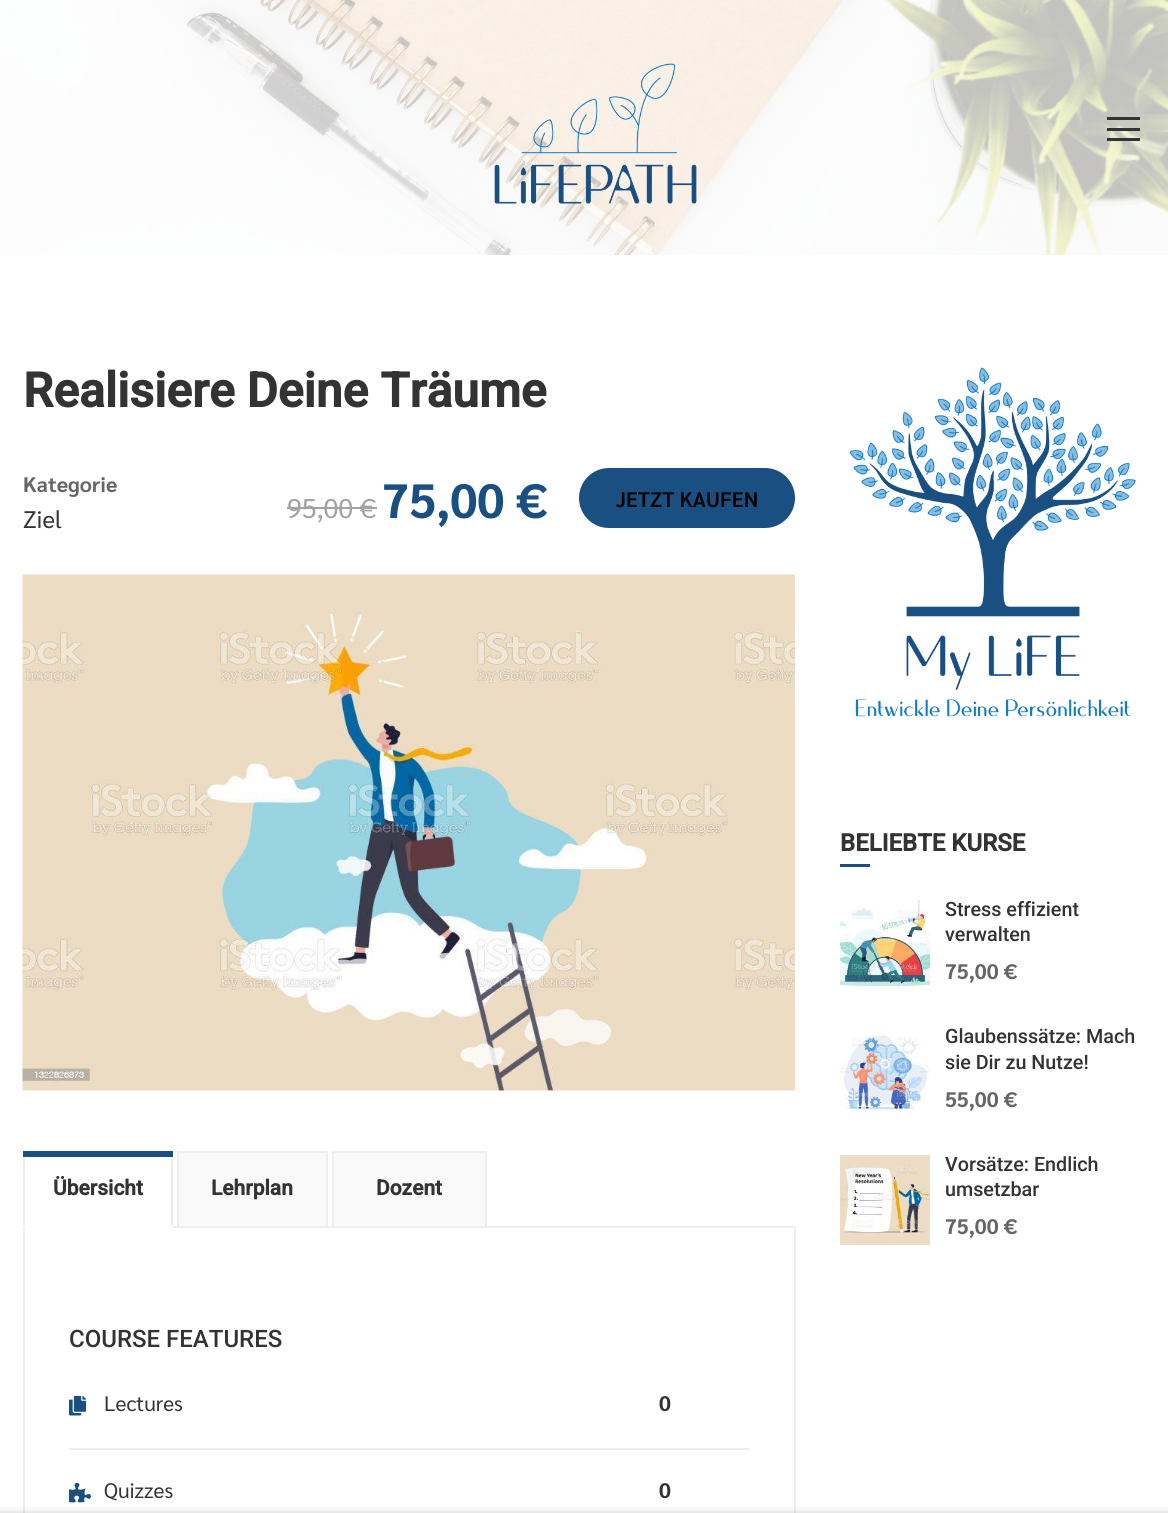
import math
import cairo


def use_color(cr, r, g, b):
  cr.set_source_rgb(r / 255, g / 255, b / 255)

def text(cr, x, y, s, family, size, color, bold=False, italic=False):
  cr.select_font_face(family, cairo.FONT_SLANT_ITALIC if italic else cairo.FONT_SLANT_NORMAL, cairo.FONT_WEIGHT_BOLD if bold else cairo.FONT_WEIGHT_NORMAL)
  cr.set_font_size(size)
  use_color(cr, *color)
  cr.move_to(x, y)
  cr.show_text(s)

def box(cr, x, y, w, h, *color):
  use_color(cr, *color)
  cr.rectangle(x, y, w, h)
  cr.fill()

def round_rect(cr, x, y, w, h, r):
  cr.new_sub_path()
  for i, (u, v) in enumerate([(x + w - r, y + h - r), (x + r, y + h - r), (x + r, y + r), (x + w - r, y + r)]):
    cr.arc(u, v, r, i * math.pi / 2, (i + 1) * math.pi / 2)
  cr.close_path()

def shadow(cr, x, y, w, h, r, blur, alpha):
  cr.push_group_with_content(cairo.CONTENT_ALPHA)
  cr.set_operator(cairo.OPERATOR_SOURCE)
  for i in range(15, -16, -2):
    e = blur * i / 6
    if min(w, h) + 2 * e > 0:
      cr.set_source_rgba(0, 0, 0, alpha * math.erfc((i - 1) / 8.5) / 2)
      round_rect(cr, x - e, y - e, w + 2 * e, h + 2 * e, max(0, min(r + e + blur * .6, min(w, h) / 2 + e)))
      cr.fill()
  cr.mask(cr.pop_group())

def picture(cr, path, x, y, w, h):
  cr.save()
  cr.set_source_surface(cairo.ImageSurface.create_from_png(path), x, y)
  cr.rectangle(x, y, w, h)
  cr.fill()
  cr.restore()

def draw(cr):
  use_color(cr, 255, 255, 255)
  cr.paint()
  picture(cr, "img_02.png", 0, 0, 1168, 255)
  picture(cr, "img_01.png", 494, 63, 203, 141)
  box(cr, 1107, 117, 33, 3, 51, 51, 51)
  box(cr, 1107, 128, 33, 3, 51, 51, 51)
  box(cr, 1107, 138, 33, 3, 51, 51, 51)
  box(cr, 287, 507, 90, 2, 163, 163, 163)
  use_color(cr, 26, 80, 129)
  round_rect(cr, 579, 468, 216, 60, 30)
  cr.fill()
  picture(cr, "img_03.png", 22, 574, 773, 517)
  box(cr, 173, 1226, 622, 2, 238, 238, 238)
  box(cr, 171, 1151, 2, 75, 238, 238, 238)
  box(cr, 23, 1151, 2, 75, 238, 238, 238)
  box(cr, 23, 1151, 150, 6, 26, 80, 129)
  box(cr, 23, 1227, 2, 286, 238, 238, 238)
  box(cr, 23, 1227, 2, 1, 255, 255, 255)
  box(cr, 179, 1153, 147, 73, 249, 249, 249)
  box(cr, 177, 1151, 150, 2, 238, 238, 238)
  box(cr, 326, 1151, 2, 75, 238, 238, 238)
  box(cr, 177, 1151, 2, 75, 238, 238, 238)
  box(cr, 334, 1153, 151, 73, 249, 249, 249)
  box(cr, 332, 1151, 154, 2, 238, 238, 238)
  box(cr, 485, 1151, 2, 75, 238, 238, 238)
  box(cr, 332, 1151, 2, 75, 238, 238, 238)
  box(cr, 794, 1227, 2, 286, 238, 238, 238)
  box(cr, 69, 1448, 680, 2, 238, 238, 238)
  picture(cr, "img_04.png", 69, 1395, 18, 21)
  picture(cr, "img_05.png", 69, 1483, 22, 20)
  use_color(cr, 42, 42, 42)
  shadow(cr, -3, 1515, 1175, 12, 0, 4.5, 0.4)
  picture(cr, "img_06.png", 849, 367, 287, 350)
  box(cr, 840, 864, 30, 3, 26, 80, 129)
  picture(cr, "img_07.png", 840, 900, 90, 87)
  picture(cr, "img_08.png", 840, 1028, 90, 86)
  picture(cr, "img_09.png", 840, 1155, 90, 90)
  text(cr, 23, 407, "Realisiere Deine Träume", "Roboto", 48, (51, 51, 51), bold=True)
  text(cr, 23, 492, "Kategorie", "Sarabun", 21, (102, 102, 102), bold=True)
  text(cr, 23, 528, "Ziel", "Sarabun", 24, (51, 51, 51))
  text(cr, 287, 518, "95,00 €", "Sarabun", 27, (163, 163, 163))
  text(cr, 382, 518, "75,00 €", "Sarabun", 48, (26, 80, 129), bold=True)
  text(cr, 616, 507, "JETZT KAUFEN", "Sarabun SemiBold", 21, (0, 0, 0))
  text(cr, 53, 1195, "Übersicht", "Roboto", 21, (51, 51, 51), bold=True)
  text(cr, 211, 1195, "Lehrplan", "Roboto", 21, (51, 51, 51), bold=True)
  text(cr, 376, 1195, "Dozent", "Roboto", 21, (51, 51, 51), bold=True)
  text(cr, 69, 1347, "COURSE FEATURES", "Roboto Medium", 24, (51, 51, 51))
  text(cr, 104, 1411, "Lectures", "Sarabun", 21, (51, 51, 51))
  text(cr, 659, 1411, "0", "Sarabun", 21, (51, 51, 51), bold=True)
  text(cr, 104, 1498, "Quizzes", "Sarabun", 21, (51, 51, 51))
  text(cr, 659, 1498, "0", "Sarabun", 21, (51, 51, 51), bold=True)
  text(cr, 840, 851, "BELIEBTE KURSE", "Roboto", 24, (51, 51, 51), bold=True)
  text(cr, 945, 916, "Stress effizient", "Roboto Medium", 19.75, (51, 51, 51))
  text(cr, 945, 941, "verwalten", "Roboto Medium", 19.75, (51, 51, 51))
  text(cr, 945, 979, "75,00 €", "Sarabun", 21, (102, 102, 102), bold=True)
  text(cr, 945, 1043, "Glaubenssätze: Mach", "Roboto Medium", 19.75, (51, 51, 51))
  text(cr, 945, 1069, "sie Dir zu Nutze!", "Roboto Medium", 19.75, (51, 51, 51))
  text(cr, 945, 1107, "55,00 €", "Sarabun", 21, (102, 102, 102), bold=True)
  text(cr, 945, 1171, "Vorsätze: Endlich", "Roboto Medium", 19.75, (51, 51, 51))
  text(cr, 945, 1196, "umsetzbar", "Roboto Medium", 19.75, (51, 51, 51))
  text(cr, 945, 1234, "75,00 €", "Sarabun", 21, (102, 102, 102), bold=True)


surface = cairo.ImageSurface(cairo.FORMAT_RGB24, 1168, 1513)
cr = cairo.Context(surface)
options = cairo.FontOptions()
options.set_hint_metrics(cairo.HINT_METRICS_OFF)
options.set_hint_style(cairo.HINT_STYLE_NONE)
cr.set_font_options(options)
cr.set_miter_limit(4)
draw(cr)
surface.write_to_png("out.png")
